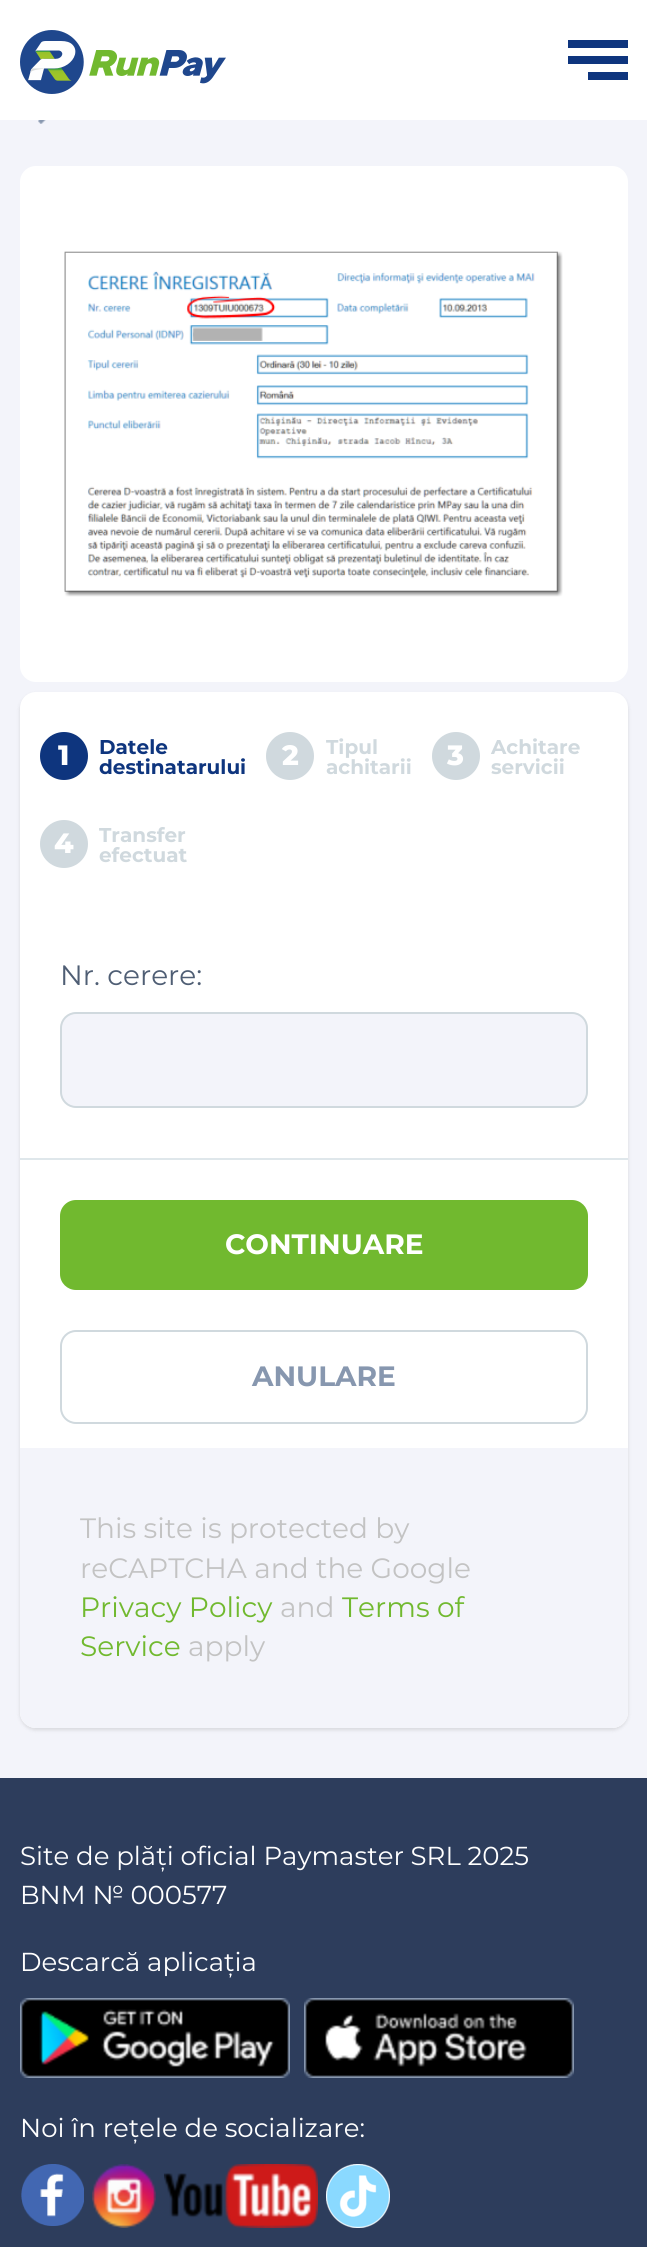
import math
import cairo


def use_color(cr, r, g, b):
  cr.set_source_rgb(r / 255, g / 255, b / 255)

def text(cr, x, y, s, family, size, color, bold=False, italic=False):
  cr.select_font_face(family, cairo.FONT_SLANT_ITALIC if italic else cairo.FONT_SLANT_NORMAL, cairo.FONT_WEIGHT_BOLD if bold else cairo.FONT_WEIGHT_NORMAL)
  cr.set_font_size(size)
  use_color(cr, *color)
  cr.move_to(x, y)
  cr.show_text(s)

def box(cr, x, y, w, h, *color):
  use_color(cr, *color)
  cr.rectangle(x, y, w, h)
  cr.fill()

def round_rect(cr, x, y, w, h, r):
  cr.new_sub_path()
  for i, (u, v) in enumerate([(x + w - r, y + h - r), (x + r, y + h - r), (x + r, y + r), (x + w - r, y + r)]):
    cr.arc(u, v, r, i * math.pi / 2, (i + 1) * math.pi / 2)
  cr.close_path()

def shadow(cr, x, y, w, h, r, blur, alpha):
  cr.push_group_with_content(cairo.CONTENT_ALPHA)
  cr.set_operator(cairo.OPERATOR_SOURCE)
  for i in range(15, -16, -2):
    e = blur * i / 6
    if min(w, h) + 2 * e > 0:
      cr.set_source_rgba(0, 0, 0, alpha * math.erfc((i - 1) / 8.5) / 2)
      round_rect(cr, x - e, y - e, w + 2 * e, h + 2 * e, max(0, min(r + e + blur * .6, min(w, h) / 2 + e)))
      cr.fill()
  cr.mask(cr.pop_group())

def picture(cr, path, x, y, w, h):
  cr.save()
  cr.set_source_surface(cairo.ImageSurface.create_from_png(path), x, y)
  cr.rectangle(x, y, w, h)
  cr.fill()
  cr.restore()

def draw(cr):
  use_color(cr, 243, 244, 250)
  cr.paint()
  box(cr, 0, 0, 647, 120, 255, 255, 255)
  picture(cr, "img_01.png", 20, 30, 206, 64)
  use_color(cr, 14, 53, 126)
  cr.set_fill_rule(cairo.FILL_RULE_EVEN_ODD)
  cr.new_path()
  cr.move_to(568, 48)
  cr.line_to(568, 40)
  cr.line_to(628, 40)
  cr.line_to(628, 48)
  cr.close_path()
  cr.move_to(568, 64)
  cr.line_to(628, 64)
  cr.line_to(628, 56)
  cr.line_to(568, 56)
  cr.close_path()
  cr.move_to(588, 80)
  cr.line_to(628, 80)
  cr.line_to(628, 72)
  cr.line_to(588, 72)
  cr.close_path()
  cr.fill()
  picture(cr, "img_02.png", 38, 120, 8, 4)
  use_color(cr, 255, 255, 255)
  round_rect(cr, 20, 166, 608, 516, 16)
  cr.fill()
  picture(cr, "img_03.png", 64, 251, 499, 346)
  use_color(cr, 0, 0, 0)
  shadow(cr, 20, 694, 608, 1036, 16, 2, 0.12)
  use_color(cr, 255, 255, 255)
  round_rect(cr, 20, 692, 608, 1036, 16)
  cr.fill()
  use_color(cr, 14, 53, 126)
  cr.arc(64, 756, 24, 0, 2 * math.pi)
  cr.fill()
  use_color(cr, 208, 217, 222)
  cr.arc(290, 756, 24, 0, 2 * math.pi)
  cr.fill()
  cr.arc(456, 756, 24, 0, 2 * math.pi)
  cr.fill()
  cr.arc(64, 844, 24, 0, 2 * math.pi)
  cr.fill()
  use_color(cr, 243, 244, 250)
  round_rect(cr, 61, 1013, 526, 94, 15)
  cr.fill_preserve()
  use_color(cr, 208, 217, 222)
  cr.stroke()
  box(cr, 20, 1158, 608, 2, 223, 231, 235)
  use_color(cr, 113, 185, 47)
  round_rect(cr, 60, 1200, 528, 90, 16)
  cr.fill()
  round_rect(cr, 61, 1331, 526, 92, 15)
  use_color(cr, 208, 217, 222)
  cr.stroke()
  use_color(cr, 243, 244, 250)
  cr.new_path()
  cr.move_to(20, 1448)
  cr.line_to(628, 1448)
  cr.line_to(628, 1712)
  cr.curve_to(628, 1721, 621, 1728, 612, 1728)
  cr.line_to(36, 1728)
  cr.curve_to(27, 1728, 20, 1721, 20, 1712)
  cr.close_path()
  cr.fill()
  box(cr, 0, 1778, 647, 469, 45, 61, 92)
  picture(cr, "img_04.png", 20, 1998, 270, 80)
  picture(cr, "img_05.png", 304, 1998, 270, 80)
  picture(cr, "img_06.png", 21, 2164, 63, 62)
  picture(cr, "img_07.png", 92, 2164, 64, 64)
  picture(cr, "img_08.png", 164, 2164, 154, 64)
  picture(cr, "img_09.png", 326, 2164, 64, 64)
  text(cr, 58, 765, "1", "Montserrat ExtraBold", 28, (255, 255, 255))
  text(cr, 99, 754, "Datele", "Montserrat", 20, (14, 53, 126), bold=True)
  text(cr, 99, 774, "destinatarului", "Montserrat", 20, (14, 53, 126), bold=True)
  text(cr, 282, 765, "2", "Montserrat ExtraBold", 28, (255, 255, 255))
  text(cr, 326, 754, "Tipul", "Montserrat", 20, (208, 217, 222), bold=True)
  text(cr, 326, 774, "achitarii", "Montserrat", 20, (208, 217, 222), bold=True)
  text(cr, 447, 765, "3", "Montserrat ExtraBold", 28, (255, 255, 255))
  text(cr, 491, 754, "Achitare", "Montserrat", 20, (208, 217, 222), bold=True)
  text(cr, 491, 774, "servicii", "Montserrat", 20, (208, 217, 222), bold=True)
  text(cr, 54, 853, "4", "Montserrat ExtraBold", 28, (255, 255, 255))
  text(cr, 99, 842, "Transfer", "Montserrat", 20, (208, 217, 222), bold=True)
  text(cr, 99, 862, "efectuat", "Montserrat", 20, (208, 217, 222), bold=True)
  text(cr, 60, 985, "Nr. cerere:", "Montserrat", 28, (79, 94, 116))
  text(cr, 225, 1254, "CONTINUARE", "Montserrat", 28, (255, 255, 255), bold=True)
  text(cr, 252, 1386, "ANULARE", "Montserrat", 28, (135, 151, 175), bold=True)
  text(cr, 80, 1538, "This site is protected by", "Montserrat", 28, (195, 195, 195))
  text(cr, 80, 1578, "reCAPTCHA and the Google", "Montserrat", 28, (195, 195, 195))
  text(cr, 80, 1617, "Privacy Policy", "Montserrat", 28, (113, 185, 47))
  text(cr, 280, 1617, "and", "Montserrat", 28, (195, 195, 195))
  text(cr, 342, 1617, "Terms of", "Montserrat", 28, (113, 185, 47))
  text(cr, 80, 1656, "Service", "Montserrat", 28, (113, 185, 47))
  text(cr, 188, 1656, "apply", "Montserrat", 28, (195, 195, 195))
  text(cr, 20, 1865, "Site de plăți oficial Paymaster SRL 2025", "Montserrat", 26, (255, 255, 255))
  text(cr, 20, 1904, "BNM № 000577", "Montserrat", 26, (255, 255, 255))
  text(cr, 20, 1971, "Descarсă aplicația", "Montserrat", 26, (255, 255, 255))
  text(cr, 20, 2137, "Noi în rețele de socializare:", "Montserrat", 26, (255, 255, 255))


surface = cairo.ImageSurface(cairo.FORMAT_RGB24, 647, 2247)
cr = cairo.Context(surface)
options = cairo.FontOptions()
options.set_hint_metrics(cairo.HINT_METRICS_OFF)
options.set_hint_style(cairo.HINT_STYLE_NONE)
cr.set_font_options(options)
cr.set_miter_limit(4)
draw(cr)
surface.write_to_png("out.png")
